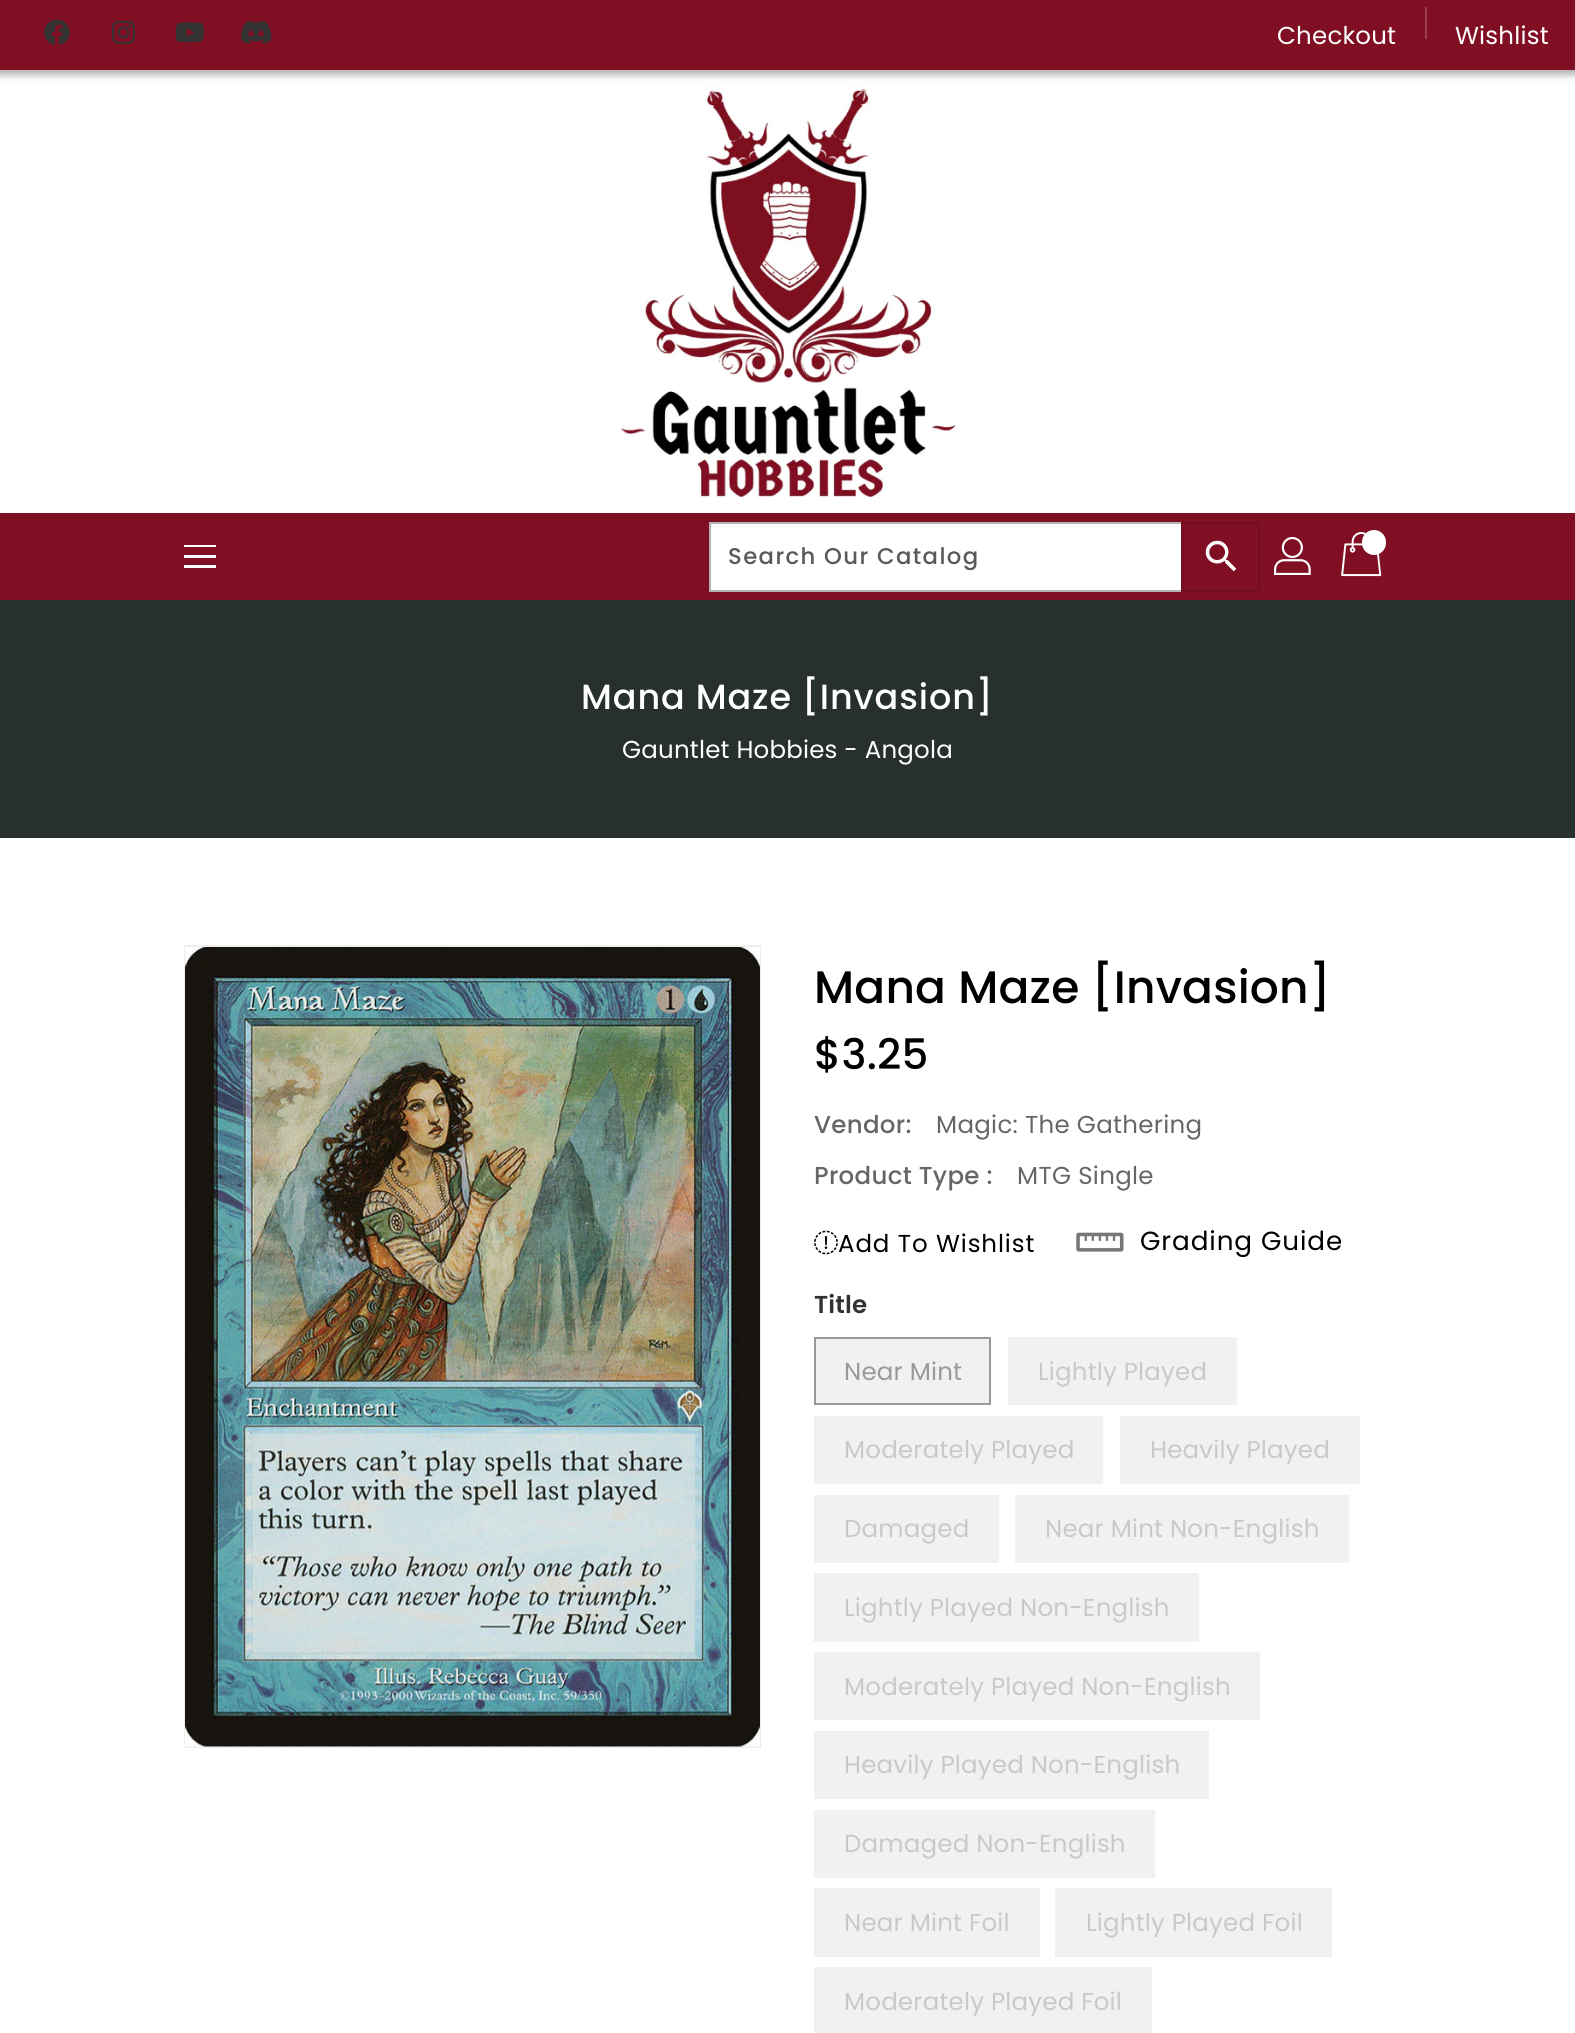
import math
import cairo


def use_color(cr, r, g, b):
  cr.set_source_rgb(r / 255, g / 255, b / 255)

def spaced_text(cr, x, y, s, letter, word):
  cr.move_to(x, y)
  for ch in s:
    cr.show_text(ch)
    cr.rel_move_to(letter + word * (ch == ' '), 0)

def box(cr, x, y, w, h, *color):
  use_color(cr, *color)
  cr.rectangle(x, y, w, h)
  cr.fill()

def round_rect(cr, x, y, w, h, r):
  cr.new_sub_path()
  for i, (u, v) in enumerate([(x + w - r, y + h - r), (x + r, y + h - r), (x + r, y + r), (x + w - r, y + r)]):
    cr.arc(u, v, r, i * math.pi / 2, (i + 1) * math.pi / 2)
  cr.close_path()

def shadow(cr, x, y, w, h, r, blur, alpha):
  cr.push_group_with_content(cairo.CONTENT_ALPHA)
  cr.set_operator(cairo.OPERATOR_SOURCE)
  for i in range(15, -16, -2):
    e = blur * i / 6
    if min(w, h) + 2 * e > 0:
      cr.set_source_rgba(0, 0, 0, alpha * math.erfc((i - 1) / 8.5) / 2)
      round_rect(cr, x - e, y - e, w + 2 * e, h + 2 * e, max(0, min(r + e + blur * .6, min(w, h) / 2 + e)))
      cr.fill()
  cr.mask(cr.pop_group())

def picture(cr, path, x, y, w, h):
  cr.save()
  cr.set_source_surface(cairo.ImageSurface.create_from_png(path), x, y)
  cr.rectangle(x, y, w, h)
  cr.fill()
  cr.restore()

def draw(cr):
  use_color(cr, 255, 255, 255)
  cr.paint()
  use_color(cr, 0, 0, 0)
  shadow(cr, -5, -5, 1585, 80, 0, 3.5, 0.3)
  box(cr, 0, 0, 1575, 70, 128, 15, 35)
  picture(cr, "img_01.png", 44, 19, 26, 26)
  picture(cr, "img_02.png", 112, 20, 23, 24)
  picture(cr, "img_03.png", 175, 22, 29, 21)
  picture(cr, "img_04.png", 241, 21, 31, 23)
  box(cr, 1425, 7, 2, 32, 153, 63, 79)
  picture(cr, "img_05.png", 621, 85, 337, 413)
  box(cr, 0, 513, 1575, 87, 128, 15, 35)
  box(cr, 184, 545, 32, 2, 255, 255, 255)
  box(cr, 184, 555, 32, 3, 255, 255, 255)
  box(cr, 184, 565, 32, 3, 255, 255, 255)
  box(cr, 711, 524, 470, 66, 255, 255, 255)
  cr.rectangle(710, 523, 549, 68)
  use_color(cr, 179, 179, 179)
  cr.stroke()
  cr.rectangle(1182, 523, 77, 68)
  use_color(cr, 115, 14, 32)
  cr.stroke()
  picture(cr, "img_06.png", 1205, 540, 32, 32)
  picture(cr, "img_07.png", 1274, 537, 37, 38)
  picture(cr, "img_08.png", 1341, 532, 41, 45)
  use_color(cr, 255, 255, 255)
  round_rect(cr, 1362, 530, 24, 25, 12)
  cr.fill()
  box(cr, 0, 600, 1575, 238, 39, 48, 47)
  cr.rectangle(185, 946, 575, 801)
  use_color(cr, 238, 238, 238)
  cr.stroke()
  picture(cr, "img_09.png", 185, 947, 575, 800)
  picture(cr, "img_10.png", 814, 1230, 24, 25)
  picture(cr, "img_11.png", 1076, 1232, 48, 20)
  use_color(cr, 241, 241, 241)
  cr.rectangle(815, 1338, 175, 66)
  cr.fill_preserve()
  use_color(cr, 153, 153, 153)
  cr.stroke()
  box(cr, 1008, 1337, 229, 68, 241, 241, 241)
  box(cr, 814, 1416, 289, 68, 241, 241, 241)
  box(cr, 1120, 1416, 240, 68, 241, 241, 241)
  box(cr, 814, 1495, 185, 68, 241, 241, 241)
  box(cr, 1015, 1495, 334, 68, 241, 241, 241)
  box(cr, 814, 1573, 385, 69, 241, 241, 241)
  box(cr, 814, 1652, 446, 68, 241, 241, 241)
  box(cr, 814, 1731, 395, 68, 241, 241, 241)
  box(cr, 814, 1810, 341, 68, 241, 241, 241)
  box(cr, 814, 1888, 226, 69, 241, 241, 241)
  box(cr, 1055, 1888, 277, 69, 241, 241, 241)
  box(cr, 814, 1967, 338, 66, 241, 241, 241)
  cr.select_font_face("Poppins")
  cr.set_font_size(24.5)
  use_color(cr, 255, 255, 255)
  spaced_text(cr, 1277, 44, "Checkout", 0.2, 0)
  spaced_text(cr, 1455, 44, "Wishlist", 0.2, 0)
  cr.select_font_face("Poppins Medium")
  cr.set_font_size(22.75)
  use_color(cr, 89, 89, 89)
  spaced_text(cr, 728, 564, "Search Our Catalog", 1.4, 0)
  cr.set_font_size(35)
  use_color(cr, 255, 255, 255)
  spaced_text(cr, 581, 709, "Mana Maze [Invasion]", 0.9, 0)
  cr.select_font_face("Poppins")
  cr.set_font_size(24.5)
  spaced_text(cr, 622, 758, "Gauntlet Hobbies - Angola", 0.2, 0)
  cr.select_font_face("Poppins Medium")
  cr.set_font_size(45.5)
  use_color(cr, 0, 0, 0)
  spaced_text(cr, 814, 1003, "Mana Maze [Invasion]", 0.2, 0)
  cr.set_font_size(42)
  spaced_text(cr, 814, 1069, "$3.25", 0.2, 0)
  cr.set_font_size(24.5)
  use_color(cr, 102, 102, 102)
  spaced_text(cr, 814, 1133, "Vendor:", 0.3, 0)
  cr.select_font_face("Poppins")
  spaced_text(cr, 936, 1133, "Magic: The Gathering", 0.3, 0)
  cr.select_font_face("Poppins Medium")
  spaced_text(cr, 814, 1184, "Product Type :", 0.3, 0)
  cr.select_font_face("Poppins")
  spaced_text(cr, 1017, 1184, "MTG Single", 0.3, 0)
  use_color(cr, 0, 0, 0)
  spaced_text(cr, 838, 1252, "Add To Wishlist", 0.9, 0)
  cr.set_font_size(26.25)
  spaced_text(cr, 1140, 1250, "Grading Guide", 0.9, 0)
  cr.select_font_face("Poppins SemiBold")
  cr.set_font_size(24.5)
  use_color(cr, 51, 51, 51)
  spaced_text(cr, 814, 1313, "Title", 0.2, 0)
  cr.select_font_face("Poppins")
  use_color(cr, 153, 153, 153)
  spaced_text(cr, 844, 1380, "Near Mint", 0.2, 0)
  use_color(cr, 201, 201, 201)
  spaced_text(cr, 1038, 1380, "Lightly Played", 0.2, 0)
  spaced_text(cr, 844, 1458, "Moderately Played", 0.2, 0)
  spaced_text(cr, 1150, 1458, "Heavily Played", 0.2, 0)
  spaced_text(cr, 844, 1537, "Damaged", 0.2, 0)
  spaced_text(cr, 1045, 1537, "Near Mint Non-English", 0.2, 0)
  spaced_text(cr, 844, 1616, "Lightly Played Non-English", 0.2, 0)
  spaced_text(cr, 844, 1695, "Moderately Played Non-English", 0.2, 0)
  spaced_text(cr, 844, 1773, "Heavily Played Non-English", 0.2, 0)
  spaced_text(cr, 844, 1852, "Damaged Non-English", 0.2, 0)
  spaced_text(cr, 844, 1931, "Near Mint Foil", 0.2, 0)
  spaced_text(cr, 1086, 1931, "Lightly Played Foil", 0.2, 0)
  spaced_text(cr, 844, 2010, "Moderately Played Foil", 0.2, 0)


surface = cairo.ImageSurface(cairo.FORMAT_RGB24, 1575, 2033)
cr = cairo.Context(surface)
options = cairo.FontOptions()
options.set_hint_metrics(cairo.HINT_METRICS_OFF)
options.set_hint_style(cairo.HINT_STYLE_NONE)
cr.set_font_options(options)
cr.set_miter_limit(4)
draw(cr)
surface.write_to_png("out.png")
